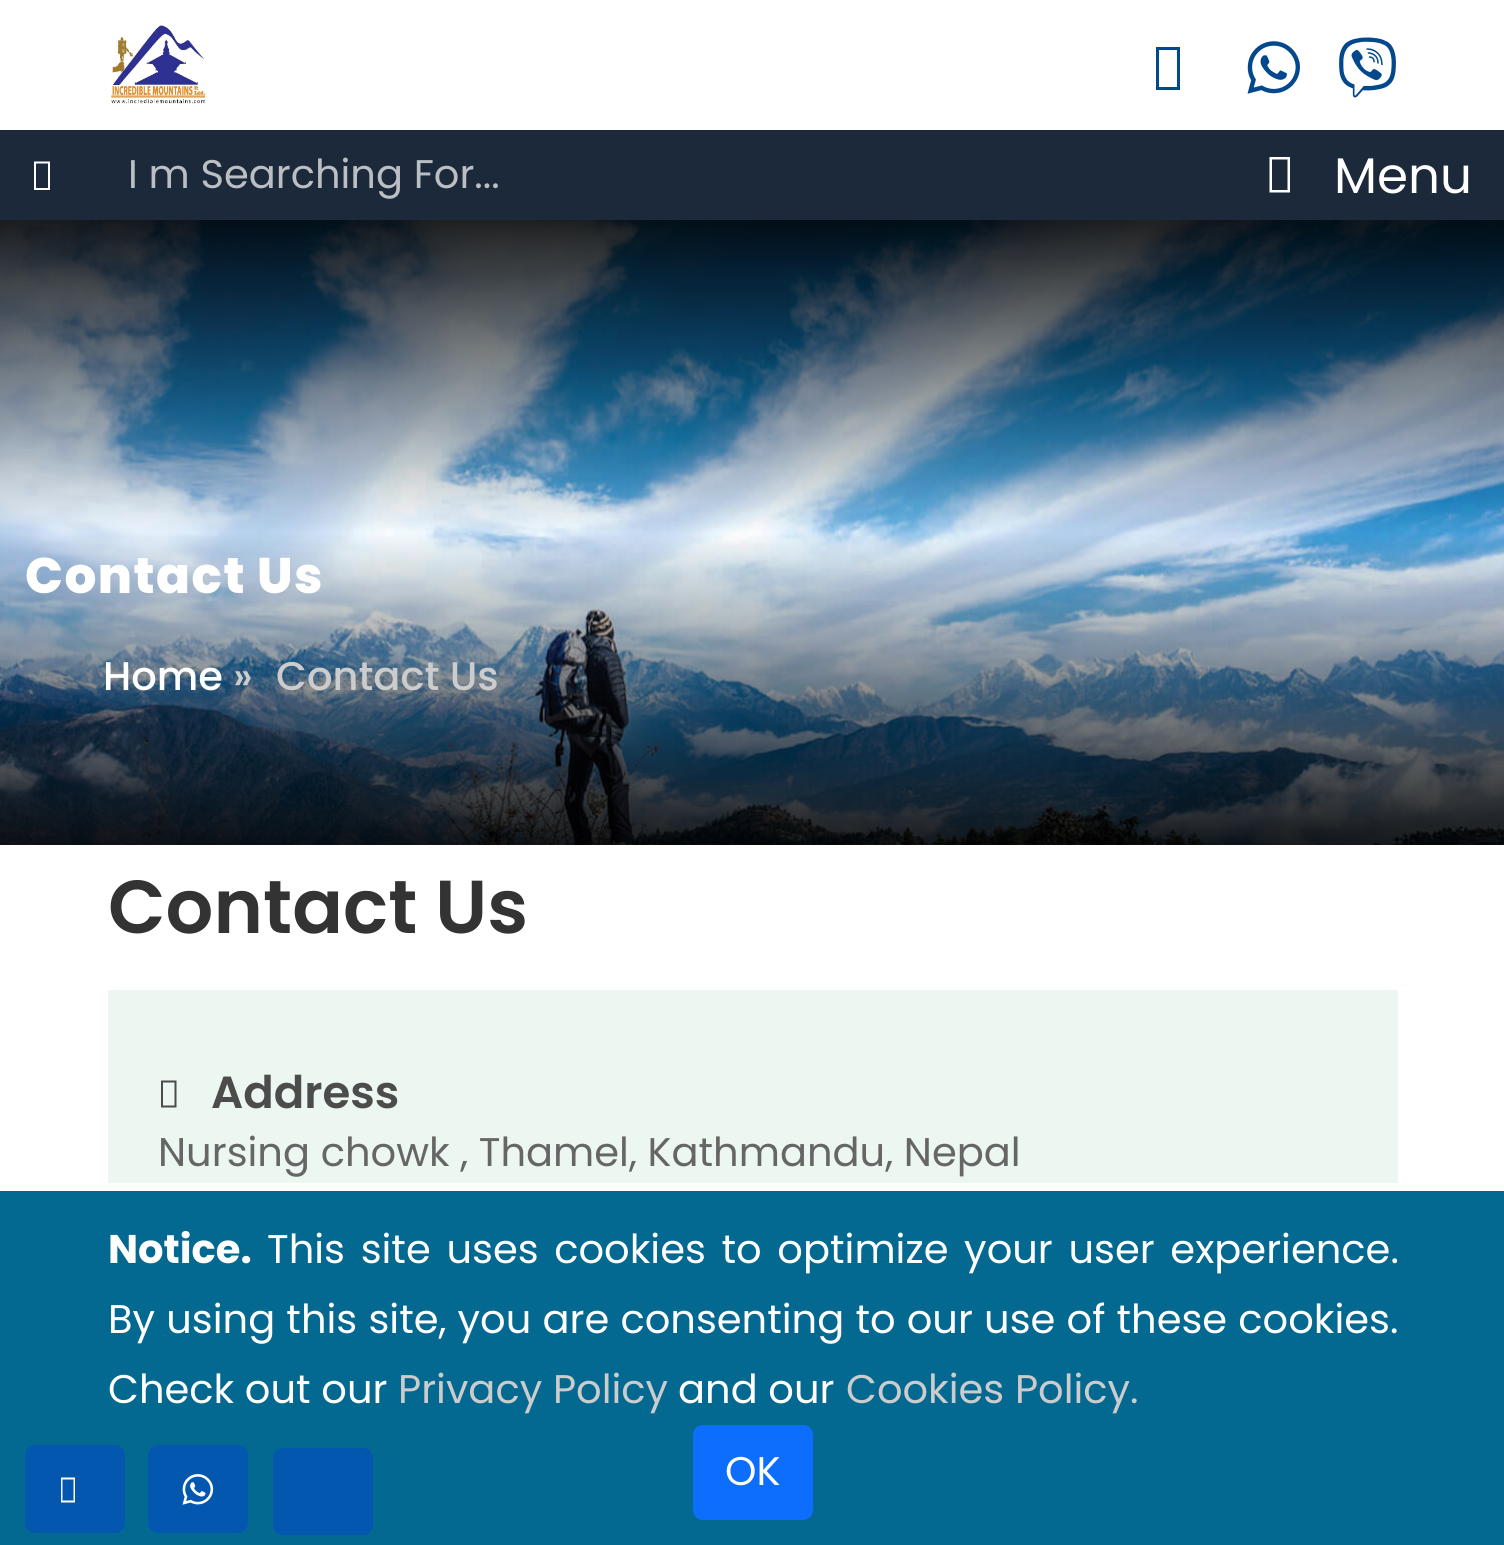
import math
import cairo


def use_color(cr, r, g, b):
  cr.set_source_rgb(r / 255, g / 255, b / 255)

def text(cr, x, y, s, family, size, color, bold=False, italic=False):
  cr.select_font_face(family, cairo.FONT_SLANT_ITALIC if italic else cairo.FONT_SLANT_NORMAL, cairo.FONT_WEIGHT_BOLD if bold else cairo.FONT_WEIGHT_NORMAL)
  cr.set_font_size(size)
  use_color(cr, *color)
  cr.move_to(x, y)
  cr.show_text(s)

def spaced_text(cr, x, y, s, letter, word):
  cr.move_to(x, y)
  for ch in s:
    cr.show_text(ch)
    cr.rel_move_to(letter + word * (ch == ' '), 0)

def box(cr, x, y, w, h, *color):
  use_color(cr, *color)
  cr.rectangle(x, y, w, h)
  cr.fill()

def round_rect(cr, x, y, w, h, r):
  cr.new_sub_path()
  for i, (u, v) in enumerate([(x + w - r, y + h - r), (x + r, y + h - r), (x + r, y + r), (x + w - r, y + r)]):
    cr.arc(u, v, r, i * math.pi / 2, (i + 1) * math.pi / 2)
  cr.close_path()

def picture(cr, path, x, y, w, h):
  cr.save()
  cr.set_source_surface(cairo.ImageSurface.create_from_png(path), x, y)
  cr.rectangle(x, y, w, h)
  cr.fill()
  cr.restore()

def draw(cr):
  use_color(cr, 255, 255, 255)
  cr.paint()
  picture(cr, "img_01.png", 110, 25, 97, 79)
  use_color(cr, 3, 72, 141)
  cr.new_path()
  cr.move_to(1156, 90)
  cr.line_to(1156, 47)
  cr.line_to(1180, 47)
  cr.line_to(1180, 90)
  cr.close_path()
  cr.move_to(1159, 87)
  cr.line_to(1177, 87)
  cr.line_to(1177, 50)
  cr.line_to(1159, 50)
  cr.close_path()
  cr.fill()
  picture(cr, "img_02.png", 1247, 41, 53, 53)
  picture(cr, "img_03.png", 1339, 37, 57, 61)
  box(cr, 0, 130, 1504, 90, 27, 41, 58)
  use_color(cr, 255, 255, 255)
  cr.new_path()
  cr.move_to(34, 190)
  cr.line_to(34, 161.5)
  cr.line_to(50, 161.5)
  cr.line_to(50, 190)
  cr.close_path()
  cr.move_to(36, 188)
  cr.line_to(48, 188)
  cr.line_to(48, 163.5)
  cr.line_to(36, 163.5)
  cr.close_path()
  cr.fill()
  cr.new_path()
  cr.move_to(1269.5, 192.5)
  cr.line_to(1269.5, 157)
  cr.line_to(1290, 157)
  cr.line_to(1290, 192.5)
  cr.close_path()
  cr.move_to(1272, 190)
  cr.line_to(1287.5, 190)
  cr.line_to(1287.5, 159.5)
  cr.line_to(1272, 159.5)
  cr.close_path()
  cr.fill()
  picture(cr, "img_04.png", 0, 220, 1504, 625)
  gradient = cairo.LinearGradient(753, 220, 753, 845)
  gradient.add_color_stop_rgba(0, 0, 0, 0, 0.87)
  gradient.add_color_stop_rgba(0.5, 0, 0, 0, 0)
  gradient.add_color_stop_rgba(1, 0, 0, 0, 0.87)
  cr.set_source(gradient)
  cr.rectangle(0, 220, 1504, 625)
  cr.fill()
  box(cr, 108, 990, 1290, 193, 235, 247, 240)
  use_color(cr, 76, 76, 76)
  cr.new_path()
  cr.move_to(161, 1107.5)
  cr.line_to(161, 1080.5)
  cr.line_to(176.5, 1080.5)
  cr.line_to(176.5, 1107.5)
  cr.close_path()
  cr.move_to(163, 1105.5)
  cr.line_to(174.5, 1105.5)
  cr.line_to(174.5, 1082.5)
  cr.line_to(163, 1082.5)
  cr.close_path()
  cr.fill()
  box(cr, 0, 1191, 1504, 354, 4, 105, 145)
  use_color(cr, 13, 110, 253)
  round_rect(cr, 694.5, 1426.5, 117, 92, 8.5)
  cr.fill_preserve()
  cr.set_line_width(3)
  cr.stroke()
  use_color(cr, 3, 87, 175)
  round_rect(cr, 25, 1445, 100, 88, 10)
  cr.fill()
  use_color(cr, 255, 255, 255)
  cr.new_path()
  cr.move_to(61, 1502.5)
  cr.line_to(61, 1477.5)
  cr.line_to(75, 1477.5)
  cr.line_to(75, 1502.5)
  cr.close_path()
  cr.move_to(62.5, 1500.5)
  cr.line_to(73.5, 1500.5)
  cr.line_to(73.5, 1479.5)
  cr.line_to(62.5, 1479.5)
  cr.close_path()
  cr.fill()
  use_color(cr, 3, 87, 175)
  round_rect(cr, 148, 1445, 100, 88, 10)
  cr.fill()
  picture(cr, "img_05.png", 182, 1474, 32, 31)
  round_rect(cr, 273, 1448, 100, 87, 10)
  cr.fill()
  text(cr, 128, 188, "I m Searching For...", "Poppins", 40, (187, 191, 196))
  text(cr, 1334, 193, "Menu", "Poppins", 50, (255, 255, 255))
  cr.select_font_face("Poppins ExtraBold")
  spaced_text(cr, 25, 593, "Contact Us", 1.5, 0)
  text(cr, 103, 690, "Home", "Poppins Medium", 40, (255, 255, 255))
  text(cr, 233, 690, "»", "Poppins Medium", 40, (204, 204, 204))
  text(cr, 276, 690, "Contact Us", "Poppins Medium", 40, (204, 204, 204))
  text(cr, 108, 933, "Contact Us", "Poppins SemiBold", 75, (51, 51, 51))
  text(cr, 211, 1108, "Address", "Poppins SemiBold", 45, (76, 76, 76))
  text(cr, 158, 1166, "Nursing chowk , Thamel, Kathmandu, Nepal", "Poppins", 40, (102, 102, 102))
  text(cr, 108, 1263, "Notice.", "Poppins", 40, (255, 255, 255), bold=True)
  cr.select_font_face("Poppins")
  spaced_text(cr, 267, 1263, "This site uses cookies to optimize your user experience.", 0, 5)
  spaced_text(cr, 108, 1333, "By using this site, you are consenting to our use of these cookies.", 0, 0.5)
  text(cr, 108, 1403, "Check out our", "Poppins", 40, (255, 255, 255))
  text(cr, 398, 1403, "Privacy Policy", "Poppins", 40, (204, 204, 204))
  text(cr, 678, 1403, "and our", "Poppins", 40, (255, 255, 255))
  text(cr, 846, 1403, "Cookies Policy.", "Poppins", 40, (204, 204, 204))
  text(cr, 725, 1485, "OK", "Poppins", 40, (255, 255, 255))


surface = cairo.ImageSurface(cairo.FORMAT_RGB24, 1504, 1545)
cr = cairo.Context(surface)
options = cairo.FontOptions()
options.set_hint_metrics(cairo.HINT_METRICS_OFF)
options.set_hint_style(cairo.HINT_STYLE_NONE)
cr.set_font_options(options)
cr.set_miter_limit(4)
draw(cr)
surface.write_to_png("out.png")
